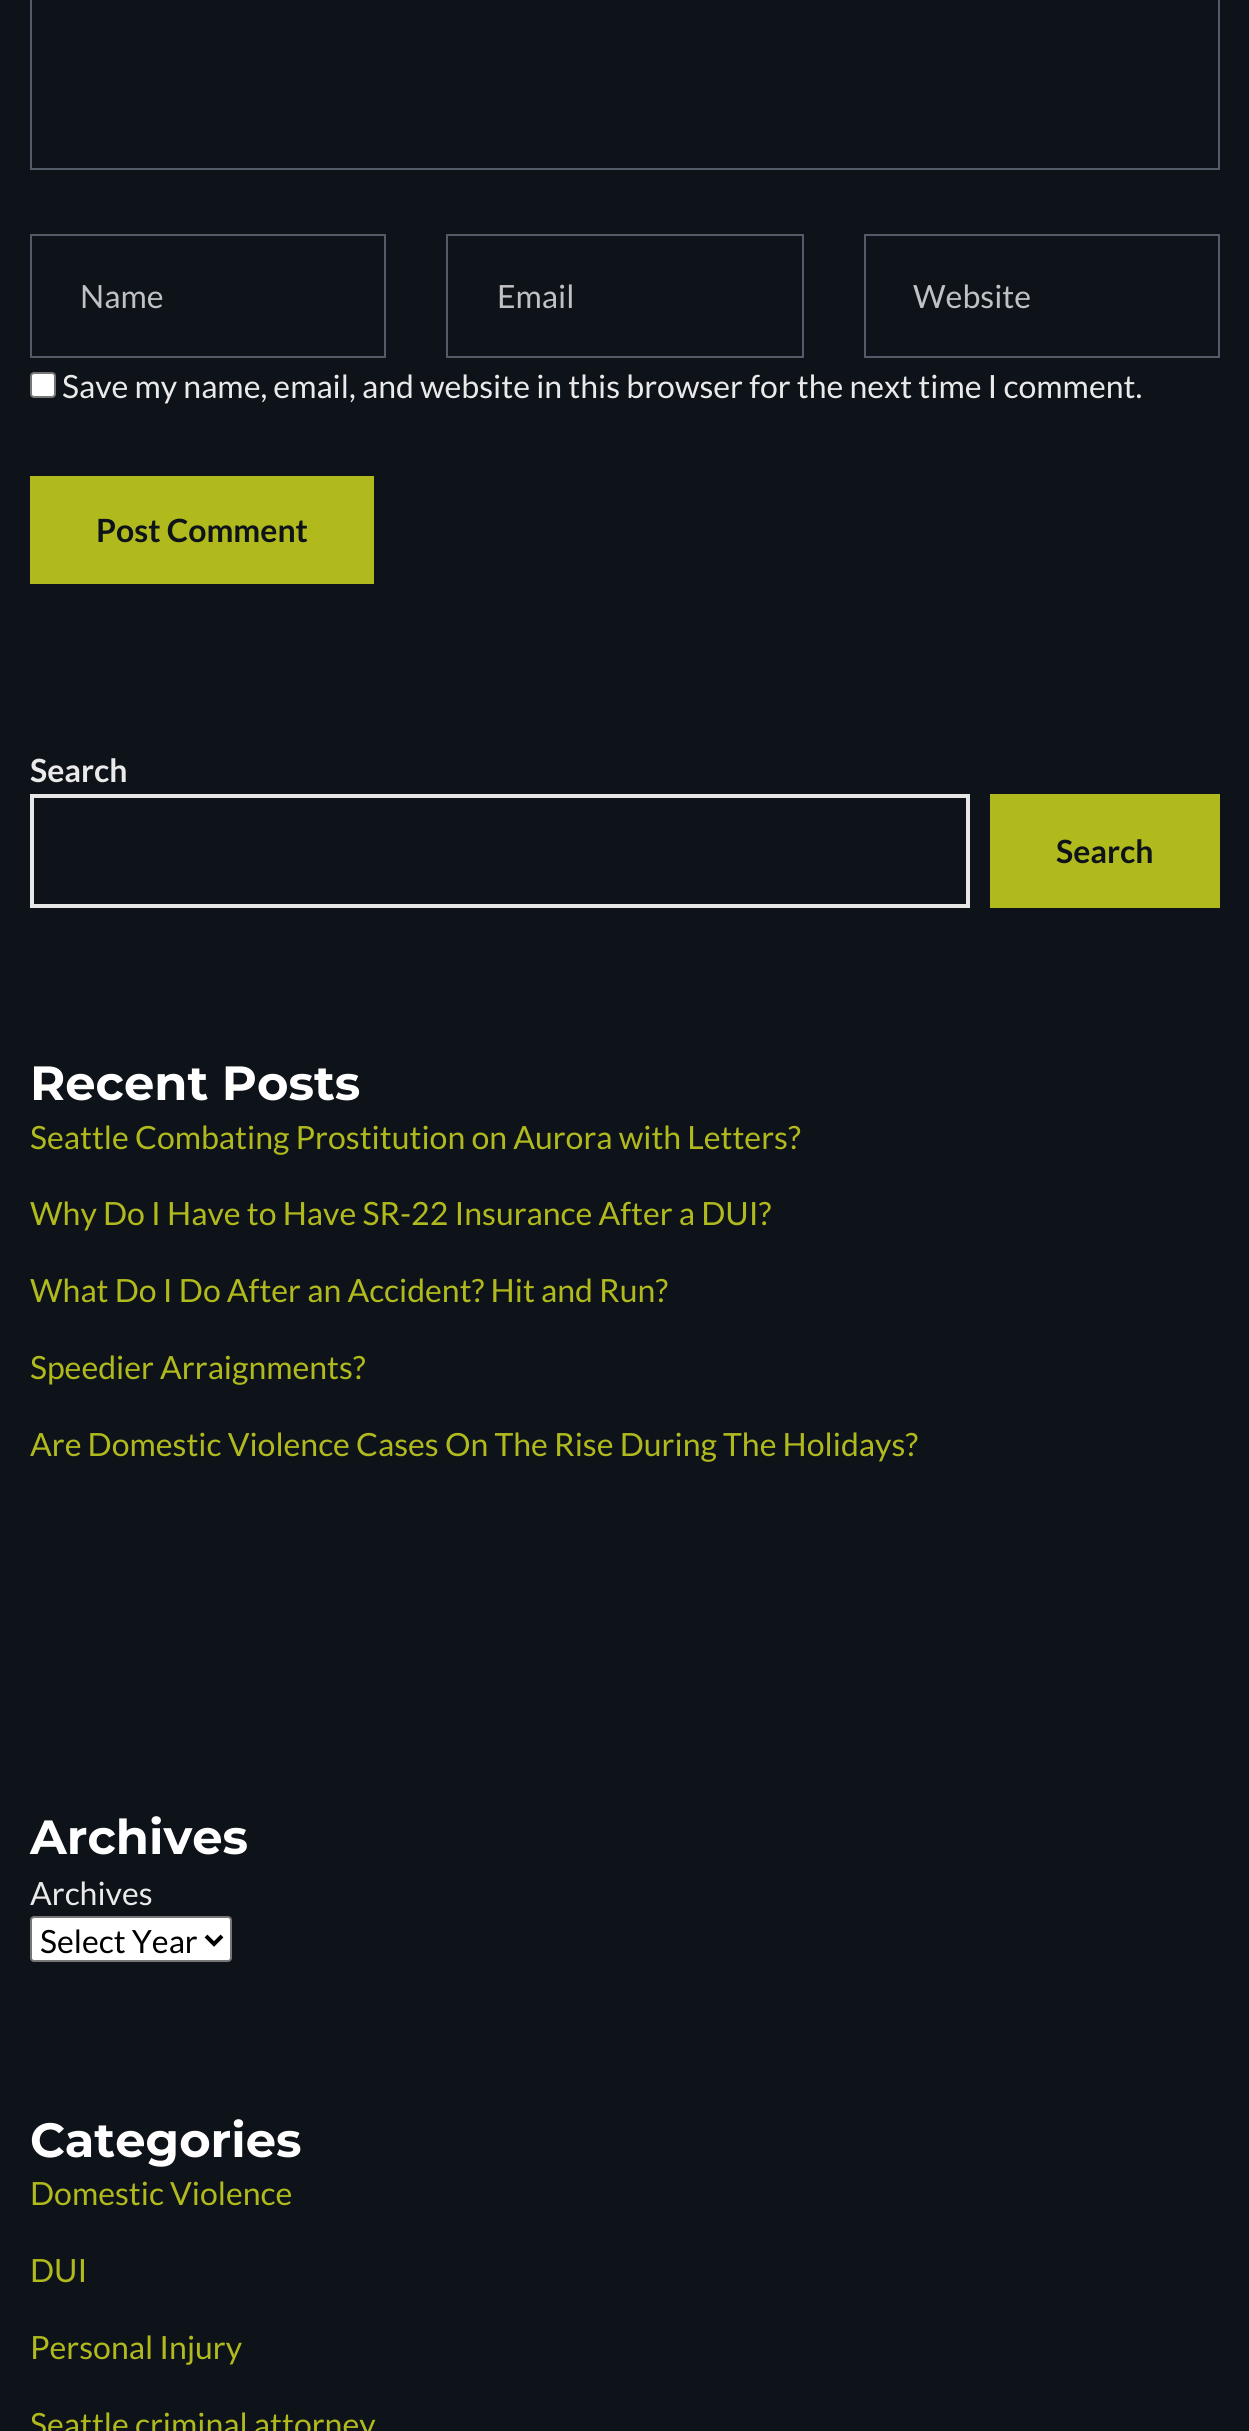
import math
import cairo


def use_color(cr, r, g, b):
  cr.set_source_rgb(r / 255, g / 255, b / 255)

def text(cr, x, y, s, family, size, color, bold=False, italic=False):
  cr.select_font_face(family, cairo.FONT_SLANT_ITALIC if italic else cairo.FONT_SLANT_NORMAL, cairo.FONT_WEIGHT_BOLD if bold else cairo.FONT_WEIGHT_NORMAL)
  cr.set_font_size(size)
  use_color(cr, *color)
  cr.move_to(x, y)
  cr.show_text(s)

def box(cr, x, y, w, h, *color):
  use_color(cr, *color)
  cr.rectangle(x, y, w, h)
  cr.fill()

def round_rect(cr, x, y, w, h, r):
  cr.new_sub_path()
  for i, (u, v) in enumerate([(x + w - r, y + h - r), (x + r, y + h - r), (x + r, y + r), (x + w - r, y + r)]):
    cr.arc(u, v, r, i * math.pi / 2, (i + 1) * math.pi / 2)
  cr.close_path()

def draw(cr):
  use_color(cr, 14, 18, 25)
  cr.paint()
  cr.rectangle(31, -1, 1188, 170)
  use_color(cr, 83, 91, 104)
  cr.stroke()
  cr.rectangle(31, 235, 354, 122)
  cr.stroke()
  cr.rectangle(447, 235, 356, 122)
  cr.stroke()
  cr.rectangle(865, 235, 354, 122)
  cr.stroke()
  use_color(cr, 255, 255, 255)
  round_rect(cr, 31, 373, 24, 24, 3)
  cr.fill_preserve()
  use_color(cr, 118, 118, 118)
  cr.stroke()
  box(cr, 30, 476, 344, 108, 177, 186, 29)
  cr.rectangle(32, 796, 936, 110)
  use_color(cr, 231, 231, 232)
  cr.set_line_width(4)
  cr.stroke()
  box(cr, 990, 794, 230, 114, 177, 186, 29)
  use_color(cr, 255, 255, 255)
  round_rect(cr, 31, 1917, 200, 44, 3)
  cr.fill_preserve()
  use_color(cr, 118, 118, 118)
  cr.set_line_width(2)
  cr.stroke()
  cr.new_path()
  cr.move_to(206, 1936)
  cr.line_to(214, 1944)
  cr.line_to(222, 1936)
  use_color(cr, 0, 0, 0)
  cr.set_line_width(4)
  cr.stroke()
  text(cr, 80, 308, "Name", "Lato", 32, (192, 193, 194))
  text(cr, 497, 308, "Email", "Lato", 32, (192, 193, 194))
  text(cr, 913, 308, "Website", "Lato", 32, (192, 193, 194))
  text(cr, 62, 398, "Save my name, email, and website in this browser for the next time I comment.", "Lato", 32, (234, 234, 234))
  text(cr, 96, 542, "Post Comment", "Lato", 32, (14, 18, 25), bold=True)
  text(cr, 30, 782, "Search", "Lato", 32, (234, 234, 234), bold=True)
  text(cr, 1056, 863, "Search", "Lato", 32, (14, 18, 25), bold=True)
  text(cr, 30, 1100, "Recent Posts", "Montserrat", 48, (255, 255, 255), bold=True)
  text(cr, 30, 1149, "Seattle Combating Prostitution on Aurora with Letters?", "Lato", 32, (177, 186, 29))
  text(cr, 30, 1225, "Why Do I Have to Have SR-22 Insurance After a DUI?", "Lato", 32, (177, 186, 29))
  text(cr, 30, 1302, "What Do I Do After an Accident? Hit and Run?", "Lato", 32, (177, 186, 29))
  text(cr, 30, 1379, "Speedier Arraignments?", "Lato", 32, (177, 186, 29))
  text(cr, 30, 1456, "Are Domestic Violence Cases On The Rise During The Holidays?", "Lato", 32, (177, 186, 29))
  text(cr, 30, 1854, "Archives", "Montserrat", 48, (255, 255, 255), bold=True)
  text(cr, 30, 1905, "Archives", "Lato", 32, (234, 234, 234))
  text(cr, 40, 1953, "Select Year", "Lato", 32, (0, 0, 0))
  text(cr, 30, 2157, "Categories", "Montserrat", 48, (255, 255, 255), bold=True)
  text(cr, 30, 2205, "Domestic Violence", "Lato", 32, (177, 186, 29))
  text(cr, 30, 2282, "DUI", "Lato", 32, (177, 186, 29))
  text(cr, 30, 2359, "Personal Injury", "Lato", 32, (177, 186, 29))
  text(cr, 30, 2436, "Seattle criminal attorney", "Lato", 32, (177, 186, 29))


surface = cairo.ImageSurface(cairo.FORMAT_RGB24, 1249, 2431)
cr = cairo.Context(surface)
options = cairo.FontOptions()
options.set_hint_metrics(cairo.HINT_METRICS_OFF)
options.set_hint_style(cairo.HINT_STYLE_NONE)
cr.set_font_options(options)
cr.set_miter_limit(4)
draw(cr)
surface.write_to_png("out.png")
